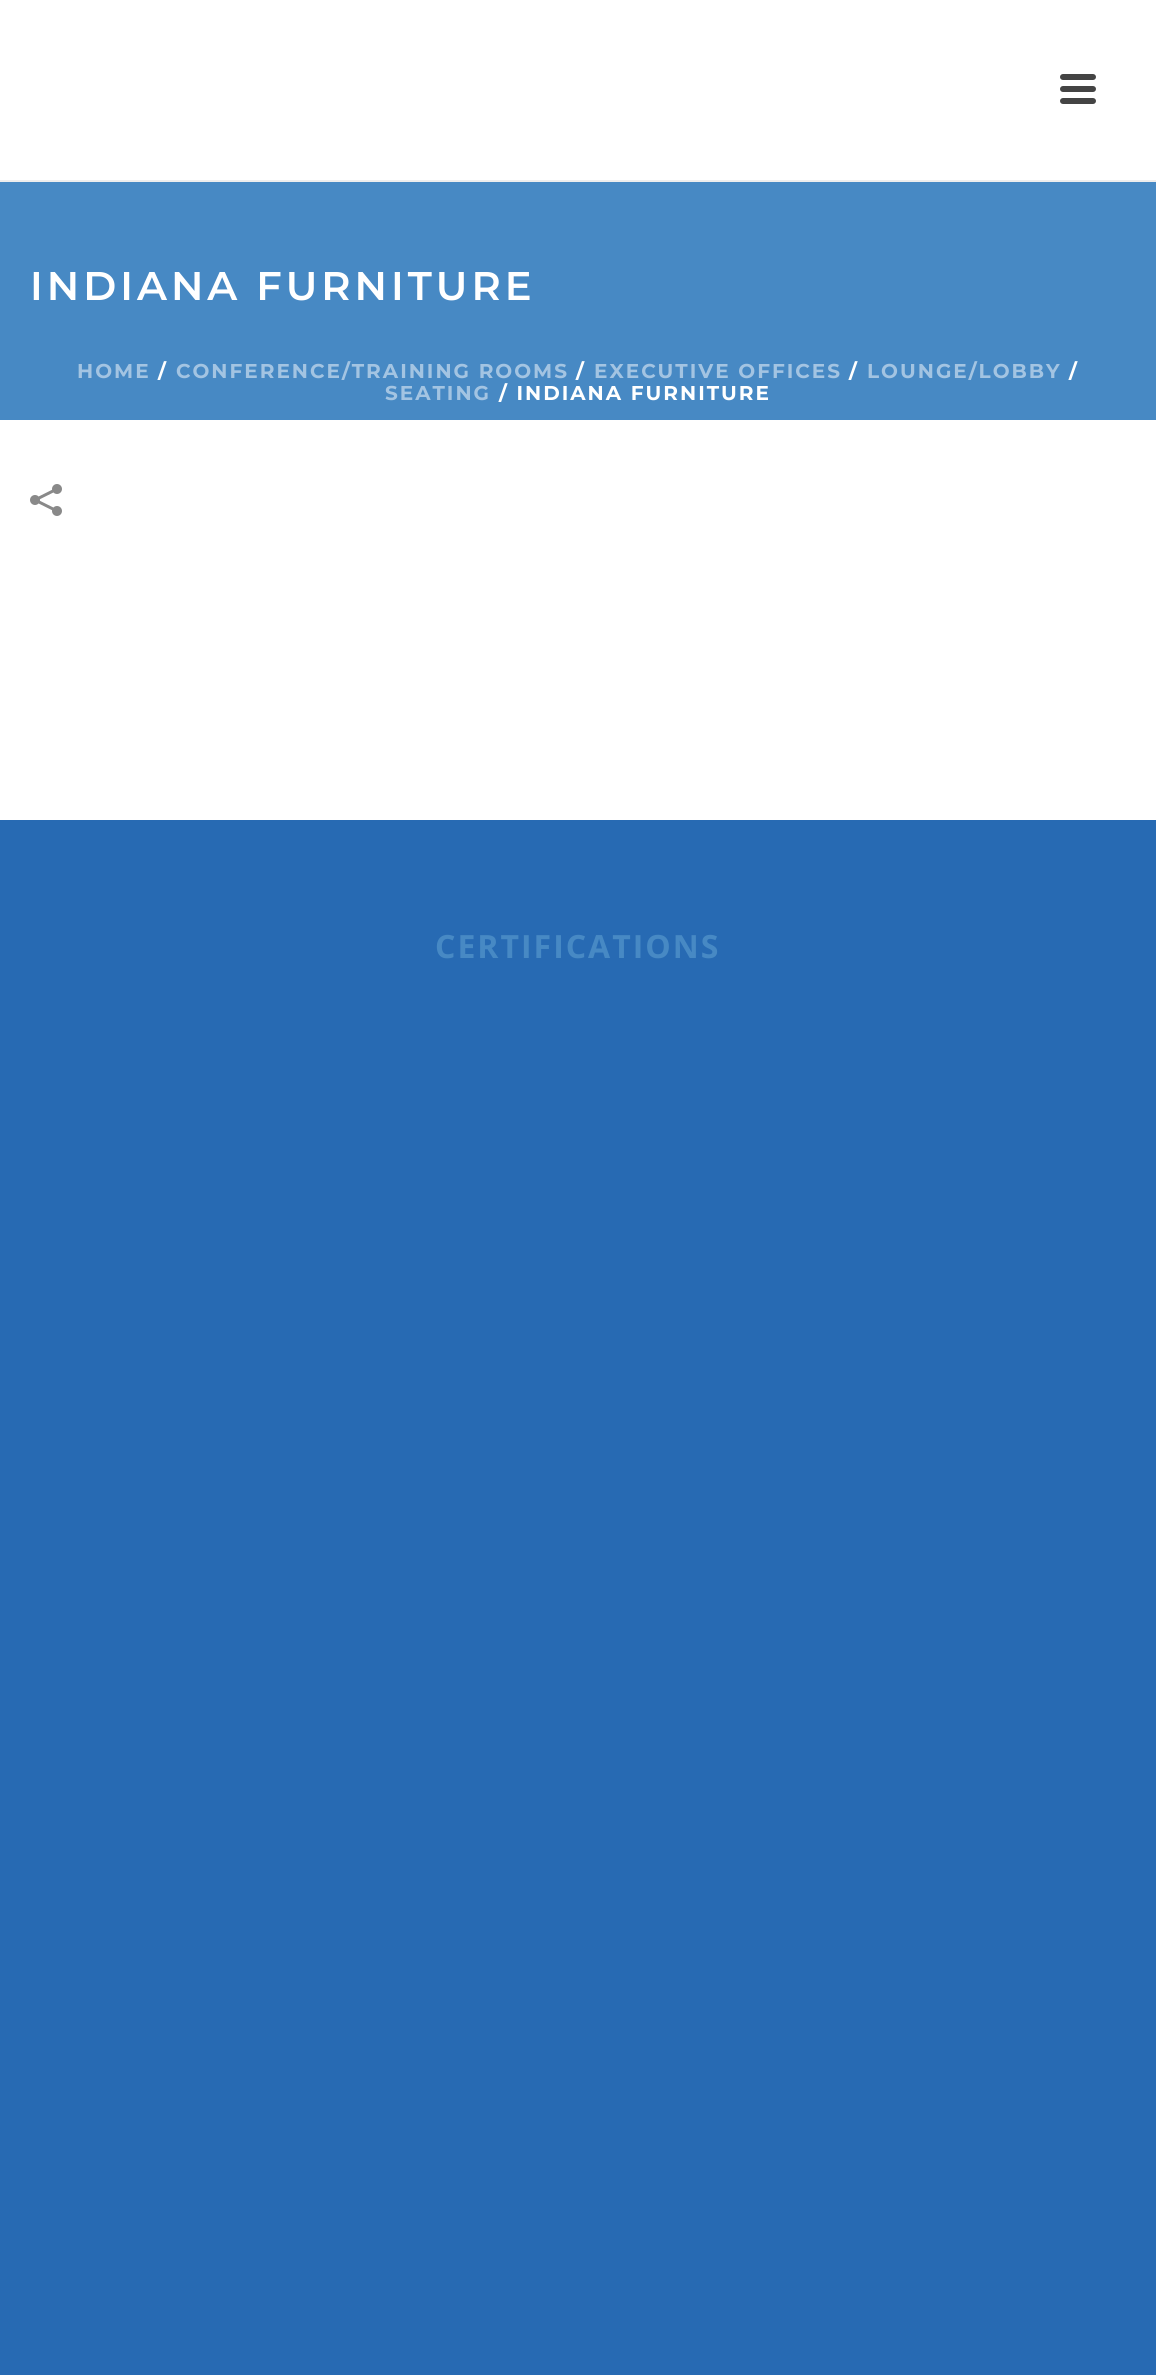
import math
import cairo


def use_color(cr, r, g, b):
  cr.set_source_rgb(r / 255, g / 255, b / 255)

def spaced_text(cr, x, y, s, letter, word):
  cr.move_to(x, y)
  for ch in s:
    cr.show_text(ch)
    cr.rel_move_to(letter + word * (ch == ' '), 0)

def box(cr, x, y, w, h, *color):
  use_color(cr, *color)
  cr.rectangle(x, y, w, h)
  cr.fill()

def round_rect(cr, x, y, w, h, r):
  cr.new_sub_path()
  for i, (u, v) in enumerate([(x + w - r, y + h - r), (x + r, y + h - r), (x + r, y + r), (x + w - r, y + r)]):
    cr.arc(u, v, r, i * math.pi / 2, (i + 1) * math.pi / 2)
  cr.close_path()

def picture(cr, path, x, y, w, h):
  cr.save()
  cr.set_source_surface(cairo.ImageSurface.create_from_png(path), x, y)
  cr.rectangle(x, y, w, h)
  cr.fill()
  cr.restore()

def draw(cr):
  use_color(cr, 255, 255, 255)
  cr.paint()
  box(cr, 0, 182, 1156, 238, 71, 137, 196)
  box(cr, 0, 180, 1156, 2, 237, 237, 237)
  use_color(cr, 68, 68, 68)
  round_rect(cr, 1060, 74, 36, 6, 3)
  cr.fill()
  round_rect(cr, 1060, 86, 36, 6, 3)
  cr.fill()
  round_rect(cr, 1060, 98, 36, 6, 3)
  cr.fill()
  picture(cr, "img_01.png", 30, 484, 32, 32)
  box(cr, 0, 820, 1156, 1555, 39, 106, 179)
  cr.select_font_face("Montserrat SemiBold")
  cr.set_font_size(40)
  use_color(cr, 255, 255, 255)
  spaced_text(cr, 30, 300, "INDIANA FURNITURE", 4, 0)
  cr.select_font_face("Montserrat", cairo.FONT_SLANT_NORMAL, cairo.FONT_WEIGHT_BOLD)
  cr.set_font_size(20)
  use_color(cr, 163, 196, 226)
  spaced_text(cr, 77, 378, "HOME", 2, 0)
  use_color(cr, 255, 255, 255)
  spaced_text(cr, 158, 378, "/", 2, 0)
  use_color(cr, 163, 196, 226)
  spaced_text(cr, 176, 378, "CONFERENCE/TRAINING ROOMS", 2, 0)
  use_color(cr, 255, 255, 255)
  spaced_text(cr, 576, 378, "/", 2, 0)
  use_color(cr, 163, 196, 226)
  spaced_text(cr, 594, 378, "EXECUTIVE OFFICES", 2, 0)
  use_color(cr, 255, 255, 255)
  spaced_text(cr, 849, 378, "/", 2, 0)
  use_color(cr, 163, 196, 226)
  spaced_text(cr, 867, 378, "LOUNGE/LOBBY", 2, 0)
  use_color(cr, 255, 255, 255)
  spaced_text(cr, 1069, 378, "/", 2, 0)
  use_color(cr, 163, 196, 226)
  spaced_text(cr, 385, 400, "SEATING", 2, 0)
  use_color(cr, 255, 255, 255)
  spaced_text(cr, 499, 400, "/ INDIANA FURNITURE", 2, 0)
  cr.select_font_face("Open Sans", cairo.FONT_SLANT_NORMAL, cairo.FONT_WEIGHT_BOLD)
  cr.set_font_size(32)
  use_color(cr, 71, 137, 196)
  spaced_text(cr, 435, 958, "CERTIFICATIONS", 2, 0)


surface = cairo.ImageSurface(cairo.FORMAT_RGB24, 1156, 2375)
cr = cairo.Context(surface)
options = cairo.FontOptions()
options.set_hint_metrics(cairo.HINT_METRICS_OFF)
options.set_hint_style(cairo.HINT_STYLE_NONE)
cr.set_font_options(options)
cr.set_miter_limit(4)
draw(cr)
surface.write_to_png("out.png")
